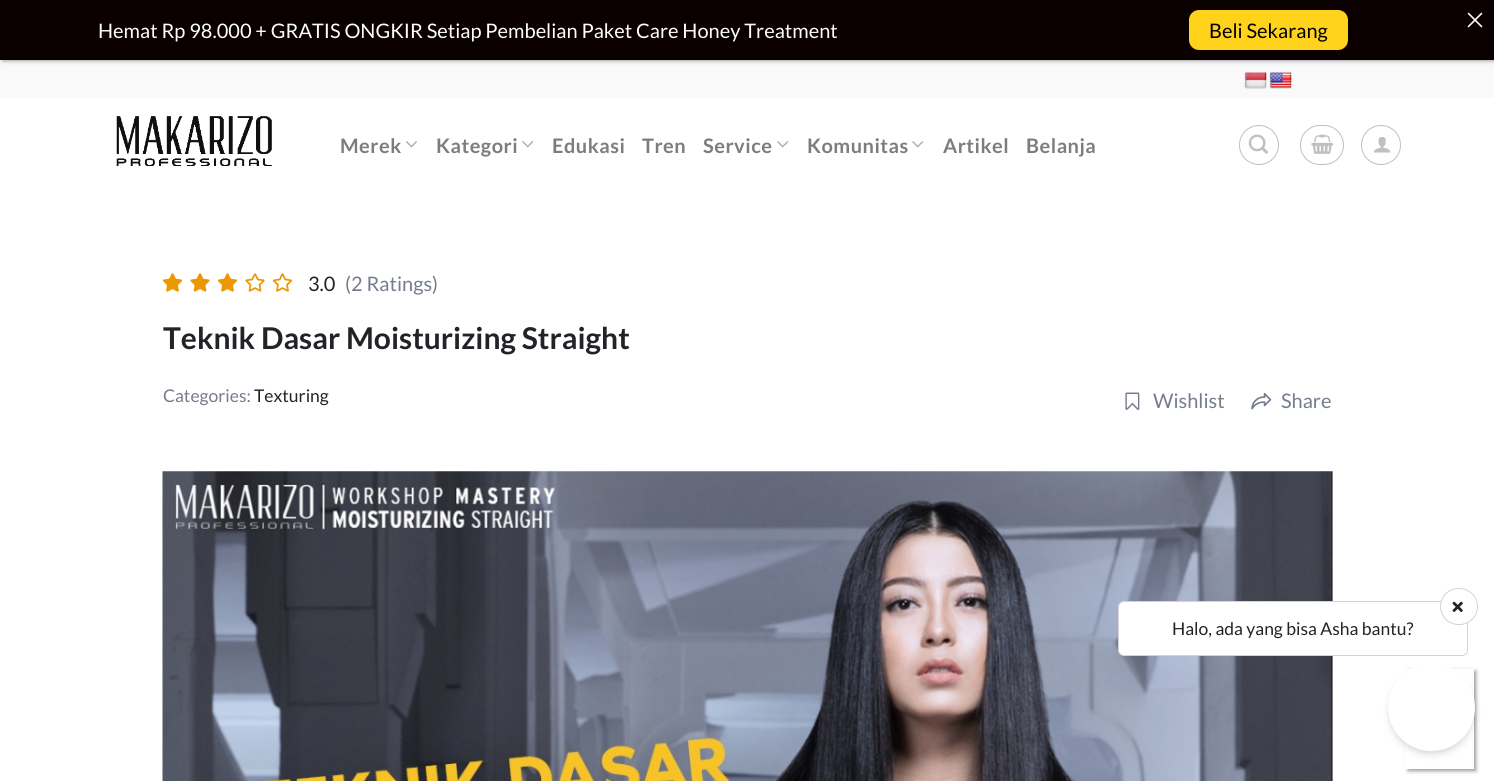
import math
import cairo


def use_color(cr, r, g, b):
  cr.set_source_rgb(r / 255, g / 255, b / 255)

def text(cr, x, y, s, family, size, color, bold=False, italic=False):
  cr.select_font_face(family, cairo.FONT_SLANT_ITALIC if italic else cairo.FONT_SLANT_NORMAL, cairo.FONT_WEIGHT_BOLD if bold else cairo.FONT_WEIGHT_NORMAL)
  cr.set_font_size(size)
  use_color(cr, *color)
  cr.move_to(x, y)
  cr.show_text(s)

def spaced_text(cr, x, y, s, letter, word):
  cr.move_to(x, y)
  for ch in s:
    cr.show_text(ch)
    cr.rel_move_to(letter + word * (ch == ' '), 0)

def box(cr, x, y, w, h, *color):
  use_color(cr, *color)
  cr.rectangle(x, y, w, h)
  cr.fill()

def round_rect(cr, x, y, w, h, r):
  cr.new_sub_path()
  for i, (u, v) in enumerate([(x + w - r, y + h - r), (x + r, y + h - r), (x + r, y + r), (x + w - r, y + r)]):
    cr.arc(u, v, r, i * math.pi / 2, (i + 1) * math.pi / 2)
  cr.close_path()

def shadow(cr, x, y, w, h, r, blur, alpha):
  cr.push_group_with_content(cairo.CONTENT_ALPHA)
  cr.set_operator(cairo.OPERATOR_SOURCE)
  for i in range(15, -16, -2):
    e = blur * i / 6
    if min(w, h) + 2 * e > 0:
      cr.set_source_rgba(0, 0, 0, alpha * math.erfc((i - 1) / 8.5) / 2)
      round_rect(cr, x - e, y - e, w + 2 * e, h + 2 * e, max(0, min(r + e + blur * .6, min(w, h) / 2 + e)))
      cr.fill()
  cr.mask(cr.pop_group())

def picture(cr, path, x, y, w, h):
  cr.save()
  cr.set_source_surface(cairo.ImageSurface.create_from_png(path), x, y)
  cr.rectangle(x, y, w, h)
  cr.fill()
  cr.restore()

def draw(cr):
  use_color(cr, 255, 255, 255)
  cr.paint()
  box(cr, 0, 60, 1494, 38, 249, 249, 249)
  use_color(cr, 0, 0, 0)
  shadow(cr, 3, 5, 1490, 55, 0, 2.5, 0.5)
  box(cr, 0, 0, 1494, 60, 10, 0, 0)
  picture(cr, "img_01.png", 1467, 12, 16, 16)
  use_color(cr, 255, 211, 27)
  round_rect(cr, 1189, 10, 159, 40, 10)
  cr.fill()
  picture(cr, "img_02.png", 1244, 72, 23, 17)
  picture(cr, "img_03.png", 1269, 72, 23, 17)
  picture(cr, "img_04.png", 116, 116, 156, 50)
  picture(cr, "img_05.png", 406, 141, 11, 7)
  picture(cr, "img_06.png", 522, 141, 12, 7)
  picture(cr, "img_06.png", 777, 141, 12, 7)
  picture(cr, "img_06.png", 912, 141, 12, 7)
  cr.arc(1259, 145, 19.5, 0, 2 * math.pi)
  use_color(cr, 192, 192, 192)
  cr.set_line_width(1)
  cr.stroke()
  picture(cr, "img_07.png", 1248, 134, 20, 20)
  round_rect(cr, 1300.5, 125.5, 43, 39, 19.5)
  cr.stroke()
  picture(cr, "img_08.png", 1311, 134, 23, 20)
  cr.arc(1381, 145, 19.5, 0, 2 * math.pi)
  cr.stroke()
  picture(cr, "img_09.png", 1373, 137, 18, 16)
  picture(cr, "img_10.png", 162, 273, 21, 19)
  picture(cr, "img_11.png", 190, 273, 20, 19)
  picture(cr, "img_10.png", 217, 273, 21, 19)
  picture(cr, "img_12.png", 245, 273, 20, 19)
  picture(cr, "img_13.png", 272, 273, 21, 19)
  picture(cr, "img_14.png", 1125, 392, 15, 18)
  picture(cr, "img_15.png", 1251, 393, 21, 17)
  picture(cr, "img_16.png", 162, 471, 1171, 310)
  use_color(cr, 255, 255, 255)
  round_rect(cr, 1118.5, 601.5, 349, 54, 5.5)
  cr.fill_preserve()
  use_color(cr, 211, 211, 211)
  cr.stroke()
  use_color(cr, 255, 255, 255)
  round_rect(cr, 1440.5, 588.5, 37, 36, 18)
  cr.fill_preserve()
  use_color(cr, 211, 211, 211)
  cr.stroke()
  picture(cr, "img_17.png", 1452, 601, 11, 11)
  cr.save()
  cr.set_fill_rule(cairo.FILL_RULE_EVEN_ODD)
  cr.new_path()
  cr.move_to(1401, 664)
  cr.line_to(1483, 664)
  cr.line_to(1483, 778)
  cr.line_to(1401, 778)
  cr.close_path()
  cr.move_to(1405, 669)
  cr.line_to(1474, 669)
  cr.line_to(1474, 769)
  cr.line_to(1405, 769)
  cr.close_path()
  cr.clip()
  use_color(cr, 153, 153, 153)
  shadow(cr, 1408, 671, 68, 100, 0, 2, 1)
  cr.restore()
  use_color(cr, 0, 0, 0)
  shadow(cr, 1389, 668, 85, 85, 42.5, 2.5, 0.06)
  shadow(cr, 1389, 670, 85, 85, 42.5, 4, 0.1)
  use_color(cr, 255, 255, 255)
  cr.arc(1431.5, 707.5, 43.5, 0, 2 * math.pi)
  cr.fill()
  text(cr, 98, 38, "Hemat Rp 98.000 + GRATIS ONGKIR Setiap Pembelian Paket Care Honey Treatment", "Lato", 20, (255, 255, 255))
  text(cr, 1209, 38, "Beli Sekarang", "Lato", 20, (0, 0, 0))
  cr.select_font_face("Lato", cairo.FONT_SLANT_NORMAL, cairo.FONT_WEIGHT_BOLD)
  use_color(cr, 125, 125, 125)
  spaced_text(cr, 340, 153, "Merek", 0.5, 0)
  spaced_text(cr, 436, 153, "Kategori", 0.5, 0)
  spaced_text(cr, 552, 153, "Edukasi", 0.5, 0)
  spaced_text(cr, 642, 153, "Tren", 0.5, 0)
  spaced_text(cr, 703, 153, "Service", 0.5, 0)
  spaced_text(cr, 807, 153, "Komunitas", 0.5, 0)
  spaced_text(cr, 943, 153, "Artikel", 0.5, 0)
  spaced_text(cr, 1026, 153, "Belanja", 0.5, 0)
  text(cr, 308, 291, "3.0", "Lato", 20, (33, 35, 39))
  text(cr, 345, 291, "(2 Ratings)", "Lato", 20, (117, 124, 142))
  text(cr, 163, 349, "Teknik Dasar Moisturizing Straight", "Lato", 30, (33, 35, 39), bold=True)
  text(cr, 163, 402, "Categories:", "Lato", 17.5, (117, 124, 142))
  text(cr, 254, 402, "Texturing", "Lato", 17.5, (33, 35, 39))
  text(cr, 1153, 408, "Wishlist", "Lato", 20, (117, 124, 142))
  text(cr, 1281, 408, "Share", "Lato", 20, (117, 124, 142))
  text(cr, 1172, 635, "Halo, ada yang bisa Asha bantu?", "Lato", 17.5, (33, 35, 39))


surface = cairo.ImageSurface(cairo.FORMAT_RGB24, 1494, 781)
cr = cairo.Context(surface)
options = cairo.FontOptions()
options.set_hint_metrics(cairo.HINT_METRICS_OFF)
options.set_hint_style(cairo.HINT_STYLE_NONE)
cr.set_font_options(options)
cr.set_miter_limit(4)
draw(cr)
surface.write_to_png("out.png")
